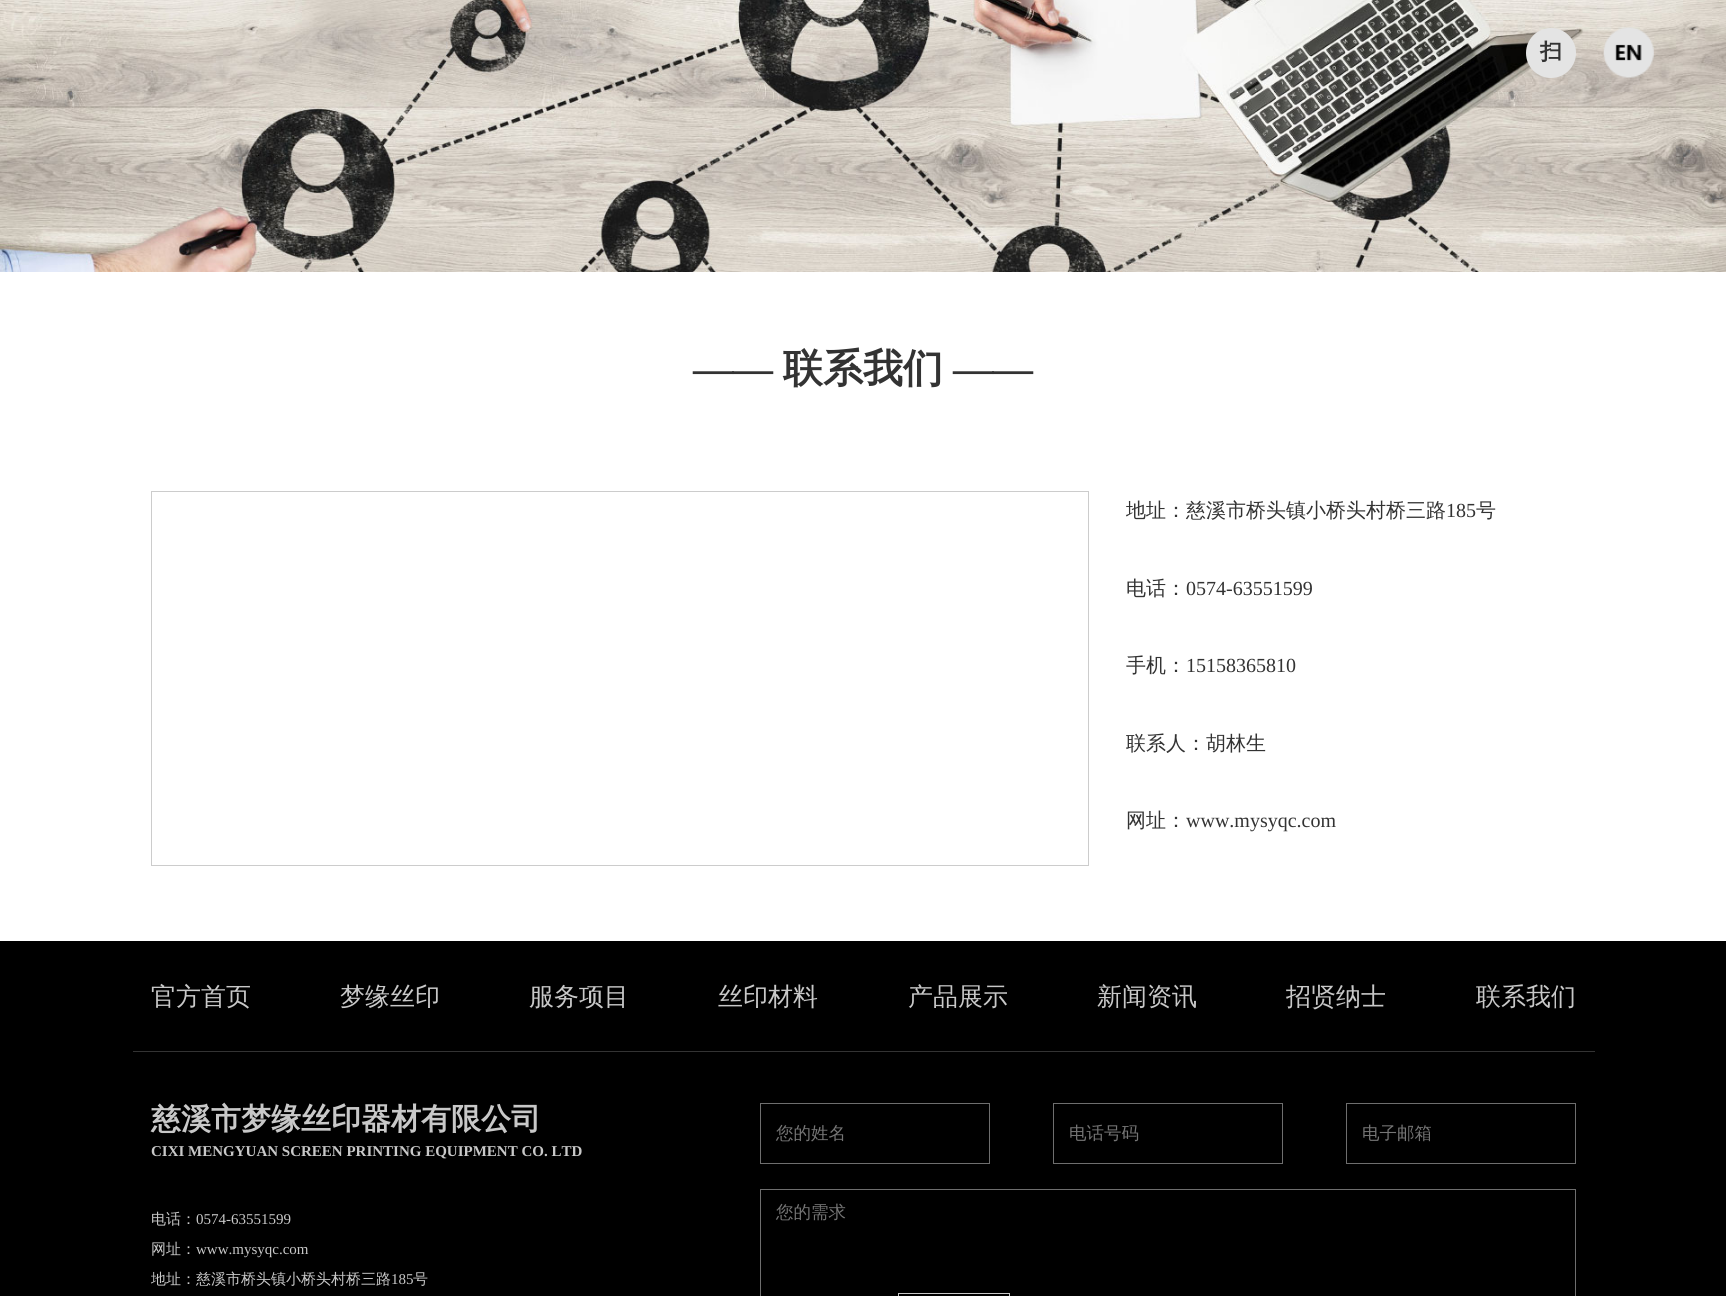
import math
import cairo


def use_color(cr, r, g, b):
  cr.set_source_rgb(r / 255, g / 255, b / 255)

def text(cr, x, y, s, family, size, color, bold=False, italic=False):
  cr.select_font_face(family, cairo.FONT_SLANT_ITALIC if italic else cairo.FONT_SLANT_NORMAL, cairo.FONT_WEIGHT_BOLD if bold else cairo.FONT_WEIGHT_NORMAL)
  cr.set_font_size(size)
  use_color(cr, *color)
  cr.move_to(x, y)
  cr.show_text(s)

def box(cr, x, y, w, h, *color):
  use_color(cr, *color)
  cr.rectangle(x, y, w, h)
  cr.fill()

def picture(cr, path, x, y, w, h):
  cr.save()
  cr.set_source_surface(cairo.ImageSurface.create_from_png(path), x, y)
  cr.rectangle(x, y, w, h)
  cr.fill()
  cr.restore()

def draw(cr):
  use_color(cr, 255, 255, 255)
  cr.paint()
  picture(cr, "img_01.png", 0, 0, 1726, 272)
  use_color(cr, 228, 228, 228)
  cr.arc(1551, 53, 25, 0, 2 * math.pi)
  cr.fill()
  picture(cr, "img_02.png", 1603, 27, 51, 51)
  cr.rectangle(151.5, 491.5, 937, 374)
  use_color(cr, 204, 204, 204)
  cr.set_line_width(1)
  cr.stroke()
  box(cr, 0, 941, 1726, 355, 0, 0, 0)
  box(cr, 133, 1051, 1462, 1, 51, 51, 51)
  cr.rectangle(760.5, 1103.5, 229, 60)
  use_color(cr, 110, 110, 110)
  cr.stroke()
  cr.rectangle(1053.5, 1103.5, 229, 60)
  cr.stroke()
  cr.rectangle(1346.5, 1103.5, 229, 60)
  cr.stroke()
  cr.rectangle(760.5, 1189.5, 815, 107)
  cr.stroke()
  cr.rectangle(898.5, 1293.5, 111, 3)
  use_color(cr, 200, 200, 200)
  cr.stroke()
  text(cr, 1540, 59, "扫", "WenQuanYi Zen Hei", 22, (51, 51, 51), bold=True)
  text(cr, 693, 382, "——", "Liberation Serif", 40, (51, 51, 51), bold=True)
  text(cr, 783, 382, "联系我们", "WenQuanYi Zen Hei", 40, (51, 51, 51), bold=True)
  text(cr, 953, 382, "——", "Liberation Serif", 40, (51, 51, 51), bold=True)
  text(cr, 1126, 517, "地址：慈溪市桥头镇小桥头村桥三路", "WenQuanYi Zen Hei Medium", 20, (51, 51, 51))
  text(cr, 1446, 517, "185", "Liberation Serif", 20, (51, 51, 51))
  text(cr, 1476, 517, "号", "WenQuanYi Zen Hei Medium", 20, (51, 51, 51))
  text(cr, 1126, 595, "电话：", "WenQuanYi Zen Hei Medium", 20, (51, 51, 51))
  text(cr, 1186, 595, "0574-63551599", "Liberation Serif", 20, (51, 51, 51))
  text(cr, 1126, 672, "手机：", "WenQuanYi Zen Hei Medium", 20, (51, 51, 51))
  text(cr, 1186, 672, "15158365810", "Liberation Serif", 20, (51, 51, 51))
  text(cr, 1126, 750, "联系人：胡林生", "WenQuanYi Zen Hei Medium", 20, (51, 51, 51))
  text(cr, 1126, 827, "网址：", "WenQuanYi Zen Hei Medium", 20, (51, 51, 51))
  text(cr, 1186, 827, "www.mysyqc.com", "Liberation Serif", 20, (51, 51, 51))
  text(cr, 151, 1005, "官方首页", "WenQuanYi Zen Hei Medium", 25, (200, 200, 200))
  text(cr, 340, 1005, "梦缘丝印", "WenQuanYi Zen Hei Medium", 25, (200, 200, 200))
  text(cr, 529, 1005, "服务项目", "WenQuanYi Zen Hei Medium", 25, (200, 200, 200))
  text(cr, 718, 1005, "丝印材料", "WenQuanYi Zen Hei Medium", 25, (200, 200, 200))
  text(cr, 908, 1005, "产品展示", "WenQuanYi Zen Hei Medium", 25, (200, 200, 200))
  text(cr, 1097, 1005, "新闻资讯", "WenQuanYi Zen Hei Medium", 25, (200, 200, 200))
  text(cr, 1286, 1005, "招贤纳士", "WenQuanYi Zen Hei Medium", 25, (200, 200, 200))
  text(cr, 1476, 1005, "联系我们", "WenQuanYi Zen Hei Medium", 25, (200, 200, 200))
  text(cr, 151, 1129, "慈溪市梦缘丝印器材有限公司", "WenQuanYi Zen Hei", 30, (200, 200, 200), bold=True)
  text(cr, 151, 1156, "CIXI MENGYUAN SCREEN PRINTING EQUIPMENT CO. LTD", "Liberation Serif", 15, (200, 200, 200), bold=True)
  text(cr, 151, 1224, "电话：", "WenQuanYi Zen Hei Medium", 15, (200, 200, 200))
  text(cr, 196, 1224, "0574-63551599", "Liberation Serif", 15, (200, 200, 200))
  text(cr, 151, 1254, "网址：", "WenQuanYi Zen Hei Medium", 15, (200, 200, 200))
  text(cr, 196, 1254, "www.mysyqc.com", "Liberation Serif", 15, (200, 200, 200))
  text(cr, 151, 1284, "地址：慈溪市桥头镇小桥头村桥三路", "WenQuanYi Zen Hei Medium", 15, (200, 200, 200))
  text(cr, 391, 1284, "185", "Liberation Serif", 15, (200, 200, 200))
  text(cr, 413, 1284, "号", "WenQuanYi Zen Hei Medium", 15, (200, 200, 200))
  text(cr, 776, 1139, "您的姓名", "WenQuanYi Zen Hei Medium", 17.5, (117, 117, 117))
  text(cr, 1069, 1139, "电话号码", "WenQuanYi Zen Hei Medium", 17.5, (117, 117, 117))
  text(cr, 1362, 1139, "电子邮箱", "WenQuanYi Zen Hei Medium", 17.5, (117, 117, 117))
  text(cr, 776, 1218, "您的需求", "WenQuanYi Zen Hei Medium", 17.5, (117, 117, 117))


surface = cairo.ImageSurface(cairo.FORMAT_RGB24, 1726, 1296)
cr = cairo.Context(surface)
options = cairo.FontOptions()
options.set_hint_metrics(cairo.HINT_METRICS_OFF)
options.set_hint_style(cairo.HINT_STYLE_NONE)
cr.set_font_options(options)
cr.set_miter_limit(4)
draw(cr)
surface.write_to_png("out.png")
